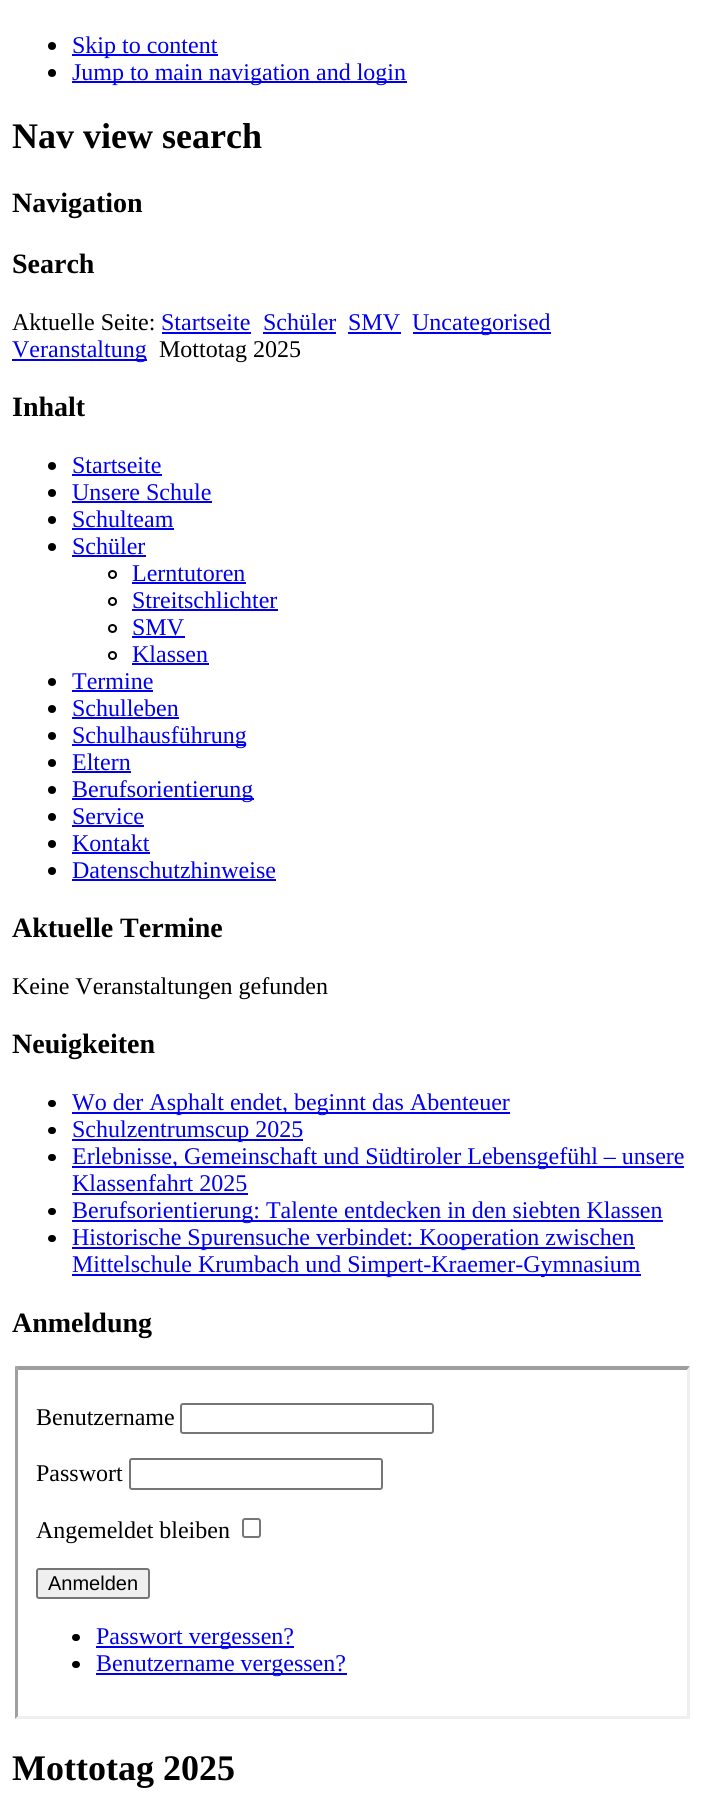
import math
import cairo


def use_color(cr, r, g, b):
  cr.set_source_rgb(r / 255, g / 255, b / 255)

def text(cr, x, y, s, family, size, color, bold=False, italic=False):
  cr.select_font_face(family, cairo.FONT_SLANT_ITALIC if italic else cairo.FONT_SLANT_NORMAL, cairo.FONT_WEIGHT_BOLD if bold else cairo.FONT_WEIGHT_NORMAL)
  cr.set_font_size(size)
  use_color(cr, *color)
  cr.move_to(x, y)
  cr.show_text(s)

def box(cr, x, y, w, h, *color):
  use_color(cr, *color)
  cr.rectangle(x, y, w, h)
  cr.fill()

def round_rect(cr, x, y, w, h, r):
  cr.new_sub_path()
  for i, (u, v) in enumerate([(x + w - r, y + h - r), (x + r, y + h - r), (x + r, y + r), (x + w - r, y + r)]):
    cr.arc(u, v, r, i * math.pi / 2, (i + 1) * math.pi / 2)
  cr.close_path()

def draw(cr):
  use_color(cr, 255, 255, 255)
  cr.paint()
  use_color(cr, 0, 0, 0)
  cr.arc(52, 46, 4, 0, 2 * math.pi)
  cr.fill()
  box(cr, 72, 54, 146, 2, 0, 0, 238)
  use_color(cr, 0, 0, 0)
  cr.arc(52, 73, 4, 0, 2 * math.pi)
  cr.fill()
  box(cr, 72, 81, 335, 2, 0, 0, 238)
  box(cr, 162, 332, 89, 2, 0, 0, 238)
  box(cr, 263, 332, 73, 2, 0, 0, 238)
  box(cr, 348, 332, 53, 2, 0, 0, 238)
  box(cr, 413, 332, 138, 2, 0, 0, 238)
  box(cr, 12, 359, 135, 2, 0, 0, 238)
  use_color(cr, 0, 0, 0)
  cr.arc(52, 466, 4, 0, 2 * math.pi)
  cr.fill()
  box(cr, 72, 474, 90, 2, 0, 0, 238)
  use_color(cr, 0, 0, 0)
  cr.arc(52, 493, 4, 0, 2 * math.pi)
  cr.fill()
  box(cr, 72, 501, 140, 2, 0, 0, 238)
  use_color(cr, 0, 0, 0)
  cr.arc(52, 520, 4, 0, 2 * math.pi)
  cr.fill()
  box(cr, 72, 528, 102, 2, 0, 0, 238)
  use_color(cr, 0, 0, 0)
  cr.arc(52, 547, 4, 0, 2 * math.pi)
  cr.fill()
  box(cr, 72, 555, 74, 2, 0, 0, 238)
  cr.arc(112.5, 574.5, 3.5, 0, 2 * math.pi)
  use_color(cr, 0, 0, 0)
  cr.stroke()
  box(cr, 132, 582, 114, 2, 0, 0, 238)
  cr.arc(112.5, 601.5, 3.5, 0, 2 * math.pi)
  use_color(cr, 0, 0, 0)
  cr.stroke()
  box(cr, 132, 609, 146, 2, 0, 0, 238)
  cr.arc(112.5, 628.5, 3.5, 0, 2 * math.pi)
  use_color(cr, 0, 0, 0)
  cr.stroke()
  box(cr, 132, 636, 53, 2, 0, 0, 238)
  cr.arc(112.5, 655.5, 3.5, 0, 2 * math.pi)
  use_color(cr, 0, 0, 0)
  cr.stroke()
  box(cr, 132, 663, 77, 2, 0, 0, 238)
  use_color(cr, 0, 0, 0)
  cr.arc(52, 682, 4, 0, 2 * math.pi)
  cr.fill()
  box(cr, 72, 690, 81, 2, 0, 0, 238)
  use_color(cr, 0, 0, 0)
  cr.arc(52, 709, 4, 0, 2 * math.pi)
  cr.fill()
  box(cr, 72, 717, 107, 2, 0, 0, 238)
  use_color(cr, 0, 0, 0)
  cr.arc(52, 736, 4, 0, 2 * math.pi)
  cr.fill()
  box(cr, 72, 744, 174, 2, 0, 0, 238)
  use_color(cr, 0, 0, 0)
  cr.arc(52, 763, 4, 0, 2 * math.pi)
  cr.fill()
  box(cr, 72, 771, 59, 2, 0, 0, 238)
  use_color(cr, 0, 0, 0)
  cr.arc(52, 790, 4, 0, 2 * math.pi)
  cr.fill()
  box(cr, 72, 798, 182, 2, 0, 0, 238)
  use_color(cr, 0, 0, 0)
  cr.arc(52, 817, 4, 0, 2 * math.pi)
  cr.fill()
  box(cr, 72, 825, 72, 2, 0, 0, 238)
  use_color(cr, 0, 0, 0)
  cr.arc(52, 844, 4, 0, 2 * math.pi)
  cr.fill()
  box(cr, 72, 852, 78, 2, 0, 0, 238)
  use_color(cr, 0, 0, 0)
  cr.arc(52, 871, 4, 0, 2 * math.pi)
  cr.fill()
  box(cr, 72, 879, 204, 2, 0, 0, 238)
  use_color(cr, 0, 0, 0)
  round_rect(cr, 48, 1100, 8, 7, 3.5)
  cr.fill()
  box(cr, 72, 1112, 438, 2, 0, 0, 238)
  use_color(cr, 0, 0, 0)
  round_rect(cr, 48, 1127, 8, 7, 3.5)
  cr.fill()
  box(cr, 72, 1139, 231, 2, 0, 0, 238)
  use_color(cr, 0, 0, 0)
  round_rect(cr, 48, 1154, 8, 7, 3.5)
  cr.fill()
  box(cr, 72, 1166, 612, 2, 0, 0, 238)
  box(cr, 72, 1193, 176, 2, 0, 0, 238)
  use_color(cr, 0, 0, 0)
  round_rect(cr, 48, 1208, 8, 7, 3.5)
  cr.fill()
  box(cr, 72, 1220, 591, 2, 0, 0, 238)
  use_color(cr, 0, 0, 0)
  round_rect(cr, 48, 1235, 8, 7, 3.5)
  cr.fill()
  box(cr, 72, 1247, 563, 2, 0, 0, 238)
  box(cr, 72, 1274, 569, 2, 0, 0, 238)
  use_color(cr, 159, 159, 159)
  cr.new_path()
  cr.move_to(15, 1366)
  cr.line_to(690, 1366)
  cr.line_to(687, 1370)
  cr.line_to(18, 1370)
  cr.close_path()
  cr.fill()
  use_color(cr, 239, 239, 239)
  cr.new_path()
  cr.move_to(690, 1366)
  cr.line_to(690, 1719)
  cr.line_to(687, 1716)
  cr.line_to(687, 1370)
  cr.close_path()
  cr.fill()
  cr.new_path()
  cr.move_to(690, 1719)
  cr.line_to(15, 1719)
  cr.line_to(18, 1716)
  cr.line_to(687, 1716)
  cr.close_path()
  cr.fill()
  use_color(cr, 159, 159, 159)
  cr.new_path()
  cr.move_to(15, 1719)
  cr.line_to(15, 1366)
  cr.line_to(18, 1370)
  cr.line_to(18, 1716)
  cr.close_path()
  cr.fill()
  round_rect(cr, 181, 1404, 252, 29, 2)
  use_color(cr, 118, 118, 118)
  cr.stroke()
  round_rect(cr, 130, 1459, 252, 30, 2)
  cr.stroke()
  round_rect(cr, 243, 1519, 17, 18, 2)
  cr.stroke()
  use_color(cr, 239, 239, 239)
  round_rect(cr, 37, 1569, 112, 29, 2)
  cr.fill_preserve()
  use_color(cr, 118, 118, 118)
  cr.stroke()
  use_color(cr, 0, 0, 0)
  round_rect(cr, 72, 1634, 8, 7, 3.5)
  cr.fill()
  box(cr, 96, 1646, 198, 2, 0, 0, 238)
  use_color(cr, 0, 0, 0)
  round_rect(cr, 72, 1661, 8, 7, 3.5)
  cr.fill()
  box(cr, 96, 1673, 251, 2, 0, 0, 238)
  text(cr, 72, 53, "Skip to content", "Liberation Serif", 24, (0, 0, 238))
  text(cr, 72, 80, "Jump to main navigation and login", "Liberation Serif", 24, (0, 0, 238))
  text(cr, 12, 148, "Nav view search", "Liberation Serif", 36, (0, 0, 0), bold=True)
  text(cr, 12, 212, "Navigation", "Liberation Serif", 28, (0, 0, 0), bold=True)
  text(cr, 12, 273, "Search", "Liberation Serif", 28, (0, 0, 0), bold=True)
  text(cr, 12, 330, "Aktuelle Seite:", "Liberation Serif", 24, (0, 0, 0))
  text(cr, 161, 330, "Startseite", "Liberation Serif", 24, (0, 0, 238))
  text(cr, 263, 330, "Schüler", "Liberation Serif", 24, (0, 0, 238))
  text(cr, 348, 330, "SMV", "Liberation Serif", 24, (0, 0, 238))
  text(cr, 412, 330, "Uncategorised", "Liberation Serif", 24, (0, 0, 238))
  text(cr, 12, 357, "Veranstaltung", "Liberation Serif", 24, (0, 0, 238))
  text(cr, 159, 357, "Mottotag 2025", "Liberation Serif", 24, (0, 0, 0))
  text(cr, 12, 416, "Inhalt", "Liberation Serif", 28, (0, 0, 0), bold=True)
  text(cr, 72, 473, "Startseite", "Liberation Serif", 24, (0, 0, 238))
  text(cr, 72, 500, "Unsere Schule", "Liberation Serif", 24, (0, 0, 238))
  text(cr, 72, 527, "Schulteam", "Liberation Serif", 24, (0, 0, 238))
  text(cr, 72, 554, "Schüler", "Liberation Serif", 24, (0, 0, 238))
  text(cr, 132, 581, "Lerntutoren", "Liberation Serif", 24, (0, 0, 238))
  text(cr, 132, 608, "Streitschlichter", "Liberation Serif", 24, (0, 0, 238))
  text(cr, 132, 635, "SMV", "Liberation Serif", 24, (0, 0, 238))
  text(cr, 132, 662, "Klassen", "Liberation Serif", 24, (0, 0, 238))
  text(cr, 72, 689, "Termine", "Liberation Serif", 24, (0, 0, 238))
  text(cr, 72, 716, "Schulleben", "Liberation Serif", 24, (0, 0, 238))
  text(cr, 72, 743, "Schulhausführung", "Liberation Serif", 24, (0, 0, 238))
  text(cr, 72, 770, "Eltern", "Liberation Serif", 24, (0, 0, 238))
  text(cr, 72, 797, "Berufsorientierung", "Liberation Serif", 24, (0, 0, 238))
  text(cr, 72, 824, "Service", "Liberation Serif", 24, (0, 0, 238))
  text(cr, 72, 851, "Kontakt", "Liberation Serif", 24, (0, 0, 238))
  text(cr, 72, 878, "Datenschutzhinweise", "Liberation Serif", 24, (0, 0, 238))
  text(cr, 12, 937, "Aktuelle Termine", "Liberation Serif", 28, (0, 0, 0), bold=True)
  text(cr, 12, 994, "Keine Veranstaltungen gefunden", "Liberation Serif", 24, (0, 0, 0))
  text(cr, 12, 1053, "Neuigkeiten", "Liberation Serif", 28, (0, 0, 0), bold=True)
  text(cr, 72, 1110, "Wo der Asphalt endet, beginnt das Abenteuer", "Liberation Serif", 24, (0, 0, 238))
  text(cr, 72, 1137, "Schulzentrumscup 2025", "Liberation Serif", 24, (0, 0, 238))
  text(cr, 72, 1164, "Erlebnisse, Gemeinschaft und Südtiroler Lebensgefühl – unsere", "Liberation Serif", 24, (0, 0, 238))
  text(cr, 72, 1191, "Klassenfahrt 2025", "Liberation Serif", 24, (0, 0, 238))
  text(cr, 72, 1218, "Berufsorientierung: Talente entdecken in den siebten Klassen", "Liberation Serif", 24, (0, 0, 238))
  text(cr, 72, 1245, "Historische Spurensuche verbindet: Kooperation zwischen", "Liberation Serif", 24, (0, 0, 238))
  text(cr, 72, 1272, "Mittelschule Krumbach und Simpert-Kraemer-Gymnasium", "Liberation Serif", 24, (0, 0, 238))
  text(cr, 12, 1332, "Anmeldung", "Liberation Serif", 28, (0, 0, 0), bold=True)
  text(cr, 36, 1425, "Benutzername", "Liberation Serif", 24, (0, 0, 0))
  text(cr, 36, 1481, "Passwort", "Liberation Serif", 24, (0, 0, 0))
  text(cr, 36, 1538, "Angemeldet bleiben", "Liberation Serif", 24, (0, 0, 0))
  text(cr, 48, 1590, "Anmelden", "Liberation Sans", 20, (0, 0, 0))
  text(cr, 96, 1644, "Passwort vergessen?", "Liberation Serif", 24, (0, 0, 238))
  text(cr, 96, 1671, "Benutzername vergessen?", "Liberation Serif", 24, (0, 0, 238))
  text(cr, 12, 1780, "Mottotag 2025", "Liberation Serif", 36, (0, 0, 0), bold=True)


surface = cairo.ImageSurface(cairo.FORMAT_RGB24, 705, 1801)
cr = cairo.Context(surface)
options = cairo.FontOptions()
options.set_hint_metrics(cairo.HINT_METRICS_OFF)
options.set_hint_style(cairo.HINT_STYLE_NONE)
cr.set_font_options(options)
cr.set_miter_limit(4)
draw(cr)
surface.write_to_png("out.png")
